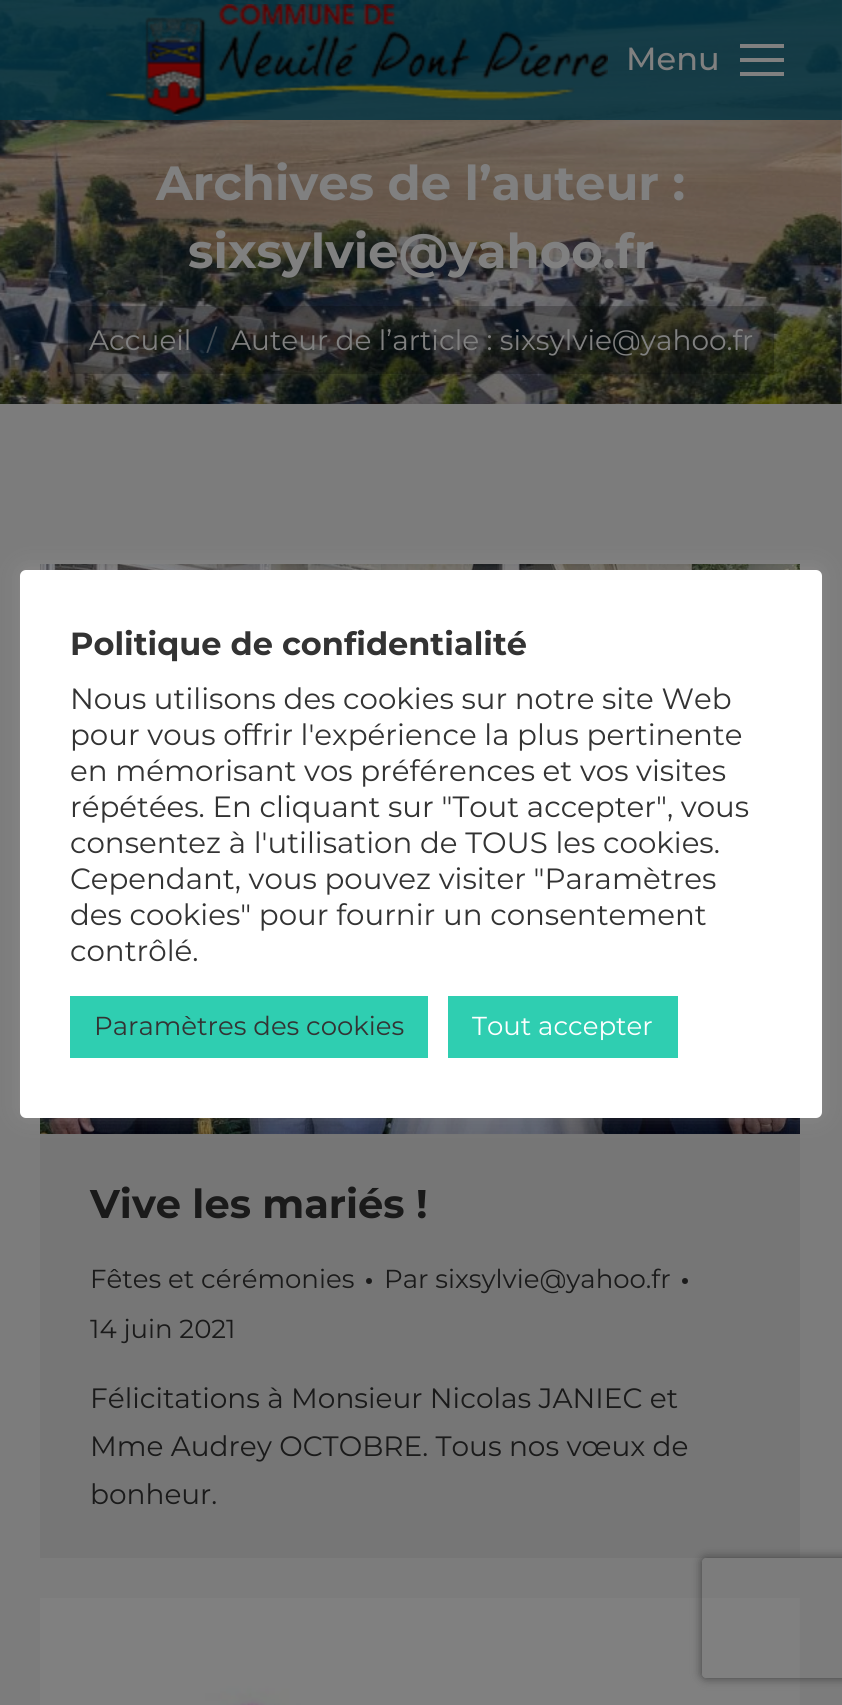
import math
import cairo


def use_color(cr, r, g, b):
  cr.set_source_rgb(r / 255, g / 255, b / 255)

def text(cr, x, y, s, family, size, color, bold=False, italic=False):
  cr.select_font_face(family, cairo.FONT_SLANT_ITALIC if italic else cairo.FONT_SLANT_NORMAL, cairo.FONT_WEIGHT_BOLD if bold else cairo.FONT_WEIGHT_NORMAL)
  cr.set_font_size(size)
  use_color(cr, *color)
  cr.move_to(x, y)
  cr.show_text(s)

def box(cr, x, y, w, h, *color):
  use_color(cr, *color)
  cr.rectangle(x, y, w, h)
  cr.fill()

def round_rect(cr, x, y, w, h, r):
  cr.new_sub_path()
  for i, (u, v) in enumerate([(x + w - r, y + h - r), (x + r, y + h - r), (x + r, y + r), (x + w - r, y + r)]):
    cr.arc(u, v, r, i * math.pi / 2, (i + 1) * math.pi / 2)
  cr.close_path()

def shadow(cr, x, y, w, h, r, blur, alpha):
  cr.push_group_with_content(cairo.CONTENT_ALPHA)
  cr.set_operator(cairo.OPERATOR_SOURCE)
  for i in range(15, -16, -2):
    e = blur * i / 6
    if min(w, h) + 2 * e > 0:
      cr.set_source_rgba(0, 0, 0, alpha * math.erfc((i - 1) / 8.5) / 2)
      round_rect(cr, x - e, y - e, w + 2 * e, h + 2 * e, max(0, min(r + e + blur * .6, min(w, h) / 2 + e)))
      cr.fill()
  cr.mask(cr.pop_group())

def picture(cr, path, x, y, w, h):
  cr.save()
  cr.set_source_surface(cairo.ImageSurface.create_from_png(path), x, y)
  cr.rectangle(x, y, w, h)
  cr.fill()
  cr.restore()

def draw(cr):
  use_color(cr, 124, 124, 124)
  cr.paint()
  box(cr, 841, 0, 1, 404, 128, 128, 128)
  picture(cr, "img_02.png", 0, 0, 842, 404)
  cr.set_source_rgba(0.012, 0.204, 0.259, 0.82)
  cr.rectangle(0, 0, 842, 120)
  cr.fill()
  picture(cr, "img_01.png", 106, 4, 502, 112)
  box(cr, 740, 44, 44, 4, 128, 128, 128)
  box(cr, 740, 58, 44, 4, 128, 128, 128)
  box(cr, 740, 72, 44, 4, 128, 128, 128)
  cr.set_source_rgba(0.02, 0.02, 0.02, 0.25)
  round_rect(cr, 68, 306, 706, 68, 4)
  cr.fill()
  box(cr, 40, 1134, 760, 424, 118, 118, 118)
  picture(cr, "img_03.png", 40, 564, 760, 570)
  use_color(cr, 26, 26, 26)
  cr.arc(369, 1281, 3, 0, 2 * math.pi)
  cr.fill()
  cr.arc(685, 1281, 3, 0, 2 * math.pi)
  cr.fill()
  picture(cr, "img_04.png", 40, 1598, 760, 107)
  use_color(cr, 172, 171, 171)
  shadow(cr, 20, 568, 802, 548, 6, 10, 0.3)
  use_color(cr, 255, 255, 255)
  round_rect(cr, 20, 570, 802, 548, 6)
  cr.fill()
  box(cr, 70, 996, 358, 62, 47, 206, 177)
  box(cr, 448, 996, 230, 62, 47, 206, 177)
  cr.save()
  cr.set_fill_rule(cairo.FILL_RULE_EVEN_ODD)
  cr.new_path()
  cr.move_to(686, 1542)
  cr.line_to(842, 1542)
  cr.line_to(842, 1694)
  cr.line_to(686, 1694)
  cr.close_path()
  cr.move_to(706, 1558)
  cr.line_to(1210, 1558)
  cr.curve_to(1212, 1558, 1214, 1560, 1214, 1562)
  cr.line_to(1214, 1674)
  cr.curve_to(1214, 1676, 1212, 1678, 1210, 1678)
  cr.line_to(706, 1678)
  cr.curve_to(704, 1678, 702, 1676, 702, 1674)
  cr.line_to(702, 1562)
  cr.curve_to(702, 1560, 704, 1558, 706, 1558)
  cr.close_path()
  cr.clip()
  use_color(cr, 64, 64, 64)
  shadow(cr, 702, 1558, 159, 120, 4, 5, 1)
  cr.restore()
  text(cr, 626, 70, "Menu", "Montserrat Medium", 32, (128, 128, 128))
  text(cr, 156, 200, "Archives de l’auteur :", "Montserrat", 48, (128, 128, 128), bold=True)
  text(cr, 188, 268, "sixsylvie@yahoo.fr", "Montserrat", 48, (128, 128, 128), bold=True)
  text(cr, 89, 350, "Accueil", "Montserrat", 28, (128, 128, 128))
  text(cr, 207, 350, "/", "Montserrat", 28, (68, 77, 84))
  text(cr, 231, 350, "Auteur de l’article : sixsylvie@yahoo.fr", "Montserrat", 28, (128, 128, 128))
  text(cr, 90, 1218, "Vive les mariés !", "Montserrat", 40, (26, 26, 26), bold=True)
  text(cr, 90, 1288, "Fêtes et cérémonies", "Montserrat", 26, (26, 26, 26))
  text(cr, 384, 1288, "Par sixsylvie@yahoo.fr", "Montserrat", 26, (26, 26, 26))
  text(cr, 90, 1338, "14 juin 2021", "Montserrat", 26, (26, 26, 26))
  text(cr, 90, 1408, "Félicitations à Monsieur Nicolas JANIEC et", "Montserrat", 28, (26, 26, 26))
  text(cr, 90, 1456, "Mme Audrey OCTOBRE. Tous nos vœux de", "Montserrat", 28, (26, 26, 26))
  text(cr, 90, 1504, "bonheur.", "Montserrat", 28, (26, 26, 26))
  text(cr, 70, 655, "Politique de confidentialité", "Montserrat", 32, (51, 51, 51), bold=True)
  text(cr, 70, 709, "Nous utilisons des cookies sur notre site Web", "Montserrat", 29.3, (51, 51, 51))
  text(cr, 70, 745, "pour vous offrir l'expérience la plus pertinente", "Montserrat", 29.3, (51, 51, 51))
  text(cr, 70, 781, "en mémorisant vos préférences et vos visites", "Montserrat", 29.3, (51, 51, 51))
  text(cr, 70, 817, "répétées. En cliquant sur \"Tout accepter\", vous", "Montserrat", 29.3, (51, 51, 51))
  text(cr, 70, 853, "consentez à l'utilisation de TOUS les cookies.", "Montserrat", 29.3, (51, 51, 51))
  text(cr, 70, 889, "Cependant, vous pouvez visiter \"Paramètres", "Montserrat", 29.3, (51, 51, 51))
  text(cr, 70, 925, "des cookies\" pour fournir un consentement", "Montserrat", 29.3, (51, 51, 51))
  text(cr, 70, 961, "contrôlé.", "Montserrat", 29.3, (51, 51, 51))
  text(cr, 94, 1035, "Paramètres des cookies", "Montserrat", 26, (51, 51, 51))
  text(cr, 472, 1035, "Tout accepter", "Montserrat", 26, (255, 255, 255))


surface = cairo.ImageSurface(cairo.FORMAT_RGB24, 842, 1705)
cr = cairo.Context(surface)
options = cairo.FontOptions()
options.set_hint_metrics(cairo.HINT_METRICS_OFF)
options.set_hint_style(cairo.HINT_STYLE_NONE)
cr.set_font_options(options)
cr.set_miter_limit(4)
draw(cr)
surface.write_to_png("out.png")
